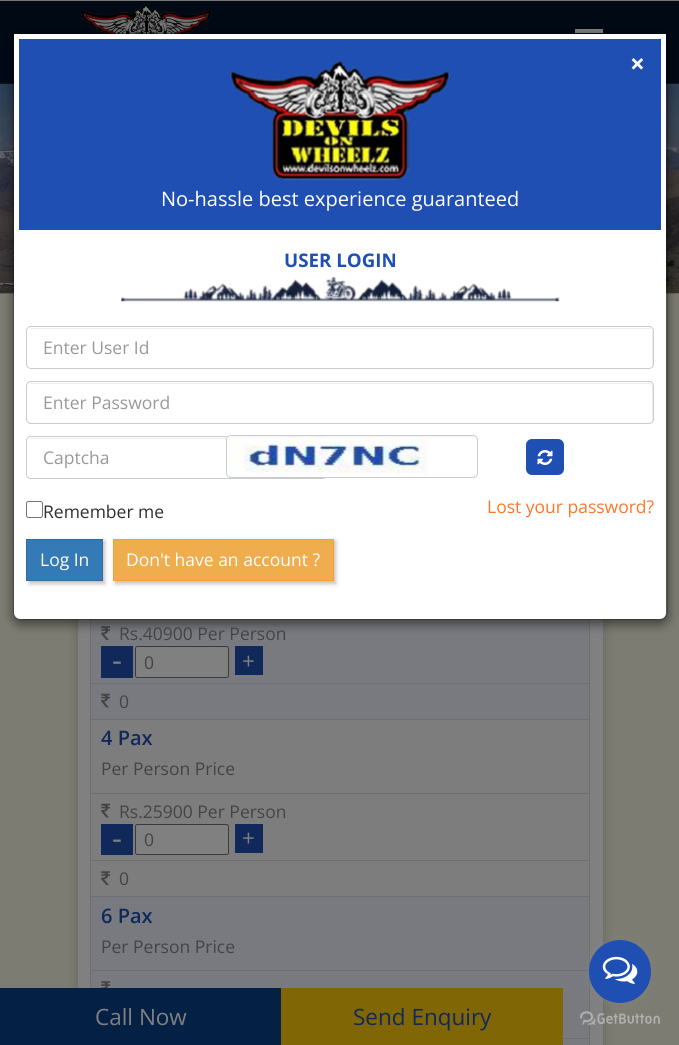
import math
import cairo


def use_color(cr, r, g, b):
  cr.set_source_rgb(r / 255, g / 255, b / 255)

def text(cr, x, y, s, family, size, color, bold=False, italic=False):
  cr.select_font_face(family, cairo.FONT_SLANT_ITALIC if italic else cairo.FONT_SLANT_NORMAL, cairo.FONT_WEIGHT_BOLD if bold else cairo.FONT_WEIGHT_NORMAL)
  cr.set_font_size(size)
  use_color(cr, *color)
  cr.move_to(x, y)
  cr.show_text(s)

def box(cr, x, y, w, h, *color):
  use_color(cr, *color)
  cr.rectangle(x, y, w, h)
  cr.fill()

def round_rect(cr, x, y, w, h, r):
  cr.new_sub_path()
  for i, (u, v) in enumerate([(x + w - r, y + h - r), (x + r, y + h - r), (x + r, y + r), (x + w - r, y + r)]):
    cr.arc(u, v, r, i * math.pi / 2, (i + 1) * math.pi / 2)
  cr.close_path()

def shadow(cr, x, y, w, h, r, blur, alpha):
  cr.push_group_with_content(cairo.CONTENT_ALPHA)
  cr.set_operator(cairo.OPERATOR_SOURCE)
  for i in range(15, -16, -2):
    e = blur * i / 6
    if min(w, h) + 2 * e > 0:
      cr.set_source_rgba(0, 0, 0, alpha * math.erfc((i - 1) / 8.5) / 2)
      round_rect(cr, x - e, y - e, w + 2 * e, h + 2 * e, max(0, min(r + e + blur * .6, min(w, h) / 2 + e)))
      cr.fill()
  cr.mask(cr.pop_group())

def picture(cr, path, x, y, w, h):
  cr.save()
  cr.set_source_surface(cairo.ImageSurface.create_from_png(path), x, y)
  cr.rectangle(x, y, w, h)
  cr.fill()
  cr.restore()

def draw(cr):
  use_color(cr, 255, 255, 255)
  cr.paint()
  box(cr, 0, 1, 679, 83, 0, 9, 20)
  box(cr, 0, 0, 679, 1, 117, 117, 117)
  picture(cr, "img_01.png", 80, 3, 132, 31)
  box(cr, 575, 29, 28, 4, 128, 128, 128)
  picture(cr, "img_06.png", 0, 83, 679, 211)
  box(cr, 0, 294, 679, 751, 124, 124, 114)
  use_color(cr, 0, 0, 0)
  shadow(cr, 78, 378, 525, 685, 0, 6, 0.2)
  box(cr, 78, 619, 525, 426, 128, 128, 128)
  box(cr, 91, 619, 498, 426, 120, 122, 128)
  box(cr, 589, 619, 1, 426, 111, 111, 111)
  box(cr, 90, 619, 1, 369, 111, 111, 111)
  picture(cr, "img_07.png", 101, 626, 9, 14)
  use_color(cr, 0, 0, 0)
  shadow(cr, 13, 36, 655, 588, 8, 5.5, 0.5)
  use_color(cr, 255, 255, 255)
  round_rect(cr, 14, 34, 652, 585, 6)
  cr.fill()
  round_rect(cr, 13.5, 33.5, 654, 586, 7.5)
  cr.set_source_rgba(0, 0, 0, 0.2)
  cr.set_line_width(1)
  cr.stroke()
  use_color(cr, 32, 79, 179)
  cr.rectangle(16.5, 36.5, 647, 196)
  cr.fill_preserve()
  use_color(cr, 255, 255, 255)
  cr.set_line_width(5)
  cr.stroke()
  picture(cr, "img_02.png", 230, 60, 220, 120)
  picture(cr, "img_03.png", 121, 277, 439, 25)
  use_color(cr, 236, 236, 236)
  cr.new_path()
  cr.move_to(31, 329)
  cr.line_to(649, 329)
  cr.curve_to(651, 329, 652, 330, 652, 332)
  cr.line_to(652, 367)
  cr.curve_to(652, 366, 653, 365, 653, 364)
  cr.line_to(653, 332)
  cr.curve_to(653, 330, 651, 328, 649, 328)
  cr.line_to(32, 328)
  cr.curve_to(31, 328, 29, 329, 29, 330)
  cr.close_path()
  cr.fill()
  round_rect(cr, 26.5, 326.5, 627, 42, 4.5)
  use_color(cr, 204, 204, 204)
  cr.set_line_width(1)
  cr.stroke()
  use_color(cr, 236, 236, 236)
  cr.new_path()
  cr.move_to(31, 384)
  cr.line_to(649, 384)
  cr.curve_to(651, 384, 652, 385, 652, 388)
  cr.line_to(652, 422)
  cr.curve_to(652, 421, 653, 420, 653, 419)
  cr.line_to(653, 387)
  cr.curve_to(653, 385, 651, 383, 649, 383)
  cr.line_to(32, 383)
  cr.curve_to(30, 383, 28, 385, 28, 387)
  cr.line_to(28, 388)
  cr.curve_to(28, 385, 29, 384, 31, 384)
  cr.close_path()
  cr.fill()
  round_rect(cr, 26.5, 381.5, 627, 42, 4.5)
  use_color(cr, 204, 204, 204)
  cr.stroke()
  use_color(cr, 236, 236, 236)
  cr.new_path()
  cr.move_to(31, 439)
  cr.line_to(322, 439)
  cr.curve_to(324, 439, 325, 439, 326, 440)
  cr.curve_to(325, 439, 324, 438, 322, 438)
  cr.line_to(31, 438)
  cr.line_to(29, 440)
  cr.close_path()
  cr.fill()
  round_rect(cr, 26.5, 436.5, 301, 42, 4.5)
  use_color(cr, 204, 204, 204)
  cr.stroke()
  use_color(cr, 255, 255, 255)
  round_rect(cr, 226, 435, 252, 43, 5)
  cr.fill()
  use_color(cr, 236, 236, 236)
  cr.new_path()
  cr.move_to(231, 438)
  cr.line_to(472, 438)
  cr.curve_to(475, 438, 476, 439, 476, 441)
  cr.line_to(476, 440)
  cr.curve_to(476, 438, 474, 436, 472, 436)
  cr.line_to(232, 436)
  cr.curve_to(230, 436, 228, 438, 228, 440)
  cr.line_to(228, 441)
  cr.curve_to(228, 439, 229, 438, 231, 438)
  cr.close_path()
  cr.fill()
  round_rect(cr, 226.5, 435.5, 251, 42, 4.5)
  use_color(cr, 204, 204, 204)
  cr.stroke()
  picture(cr, "img_04.png", 227, 436, 249, 38)
  use_color(cr, 32, 79, 179)
  round_rect(cr, 526, 439, 38, 36, 6)
  cr.fill()
  picture(cr, "img_05.png", 537, 450, 16, 15)
  round_rect(cr, 26.5, 501.5, 16, 16, 2)
  use_color(cr, 118, 118, 118)
  cr.stroke()
  use_color(cr, 202, 191, 191)
  shadow(cr, 29, 541, 76, 43, 0, 2, 1)
  use_color(cr, 51, 122, 183)
  cr.rectangle(26.5, 539.5, 76, 41)
  cr.fill_preserve()
  use_color(cr, 46, 109, 164)
  cr.stroke()
  use_color(cr, 202, 191, 191)
  shadow(cr, 115, 541, 221, 43, 0, 2, 1)
  use_color(cr, 240, 173, 78)
  cr.rectangle(113.5, 539.5, 220, 41)
  cr.fill_preserve()
  use_color(cr, 238, 162, 54)
  cr.stroke()
  box(cr, 101, 646, 32, 32, 16, 40, 90)
  use_color(cr, 128, 128, 128)
  round_rect(cr, 135.5, 646.5, 93, 31, 2)
  cr.fill_preserve()
  use_color(cr, 59, 59, 59)
  cr.stroke()
  box(cr, 235, 646, 28, 29, 16, 40, 90)
  box(cr, 91, 683, 498, 1, 111, 111, 111)
  picture(cr, "img_08.png", 101, 693, 9, 15)
  box(cr, 91, 720, 498, 176, 125, 125, 125)
  box(cr, 91, 719, 498, 1, 111, 111, 111)
  box(cr, 91, 793, 498, 1, 111, 111, 111)
  picture(cr, "img_09.png", 101, 803, 9, 15)
  box(cr, 101, 824, 32, 31, 16, 40, 90)
  use_color(cr, 128, 128, 128)
  round_rect(cr, 135.5, 824.5, 93, 30, 2)
  cr.fill_preserve()
  use_color(cr, 59, 59, 59)
  cr.stroke()
  box(cr, 235, 824, 28, 29, 16, 40, 90)
  box(cr, 91, 860, 498, 1, 111, 111, 111)
  picture(cr, "img_10.png", 101, 871, 9, 14)
  box(cr, 91, 896, 498, 1, 111, 111, 111)
  box(cr, 91, 970, 498, 1, 111, 111, 111)
  picture(cr, "img_11.png", 101, 981, 9, 7)
  box(cr, 563, 1038, 26, 1, 111, 111, 111)
  box(cr, 0, 988, 281, 57, 4, 32, 68)
  box(cr, 281, 988, 282, 57, 128, 102, 4)
  picture(cr, "img_13.png", 580, 1011, 80, 14)
  use_color(cr, 136, 136, 136)
  shadow(cr, 589, 941, 62, 63, 31, 4.5, 0.4)
  use_color(cr, 32, 79, 179)
  round_rect(cr, 589, 940, 62, 63, 31)
  cr.fill()
  picture(cr, "img_12.png", 602, 956, 36, 28)
  text(cr, 630, 73, "×", "Open Sans", 26, (255, 255, 255), bold=True)
  text(cr, 161, 206, "No-hassle best experience guaranteed", "Open Sans", 20, (255, 255, 255))
  text(cr, 284, 267, "USER LOGIN", "Open Sans", 18.75, (32, 79, 179), bold=True)
  text(cr, 43, 354, "Enter User Id", "Open Sans", 17.5, (153, 153, 153))
  text(cr, 43, 409, "Enter Password", "Open Sans", 17.5, (153, 153, 153))
  text(cr, 43, 464, "Captcha", "Open Sans", 17.5, (153, 153, 153))
  text(cr, 43, 518, "Remember me", "Open Sans", 17.5, (47, 47, 47))
  text(cr, 487, 513, "Lost your password?", "Open Sans", 17.5, (255, 118, 42))
  text(cr, 40, 566, "Log In", "Open Sans", 17.5, (255, 255, 255))
  text(cr, 126, 566, "Don't have an account ?", "Open Sans", 17.5, (255, 255, 255))
  text(cr, 119, 640, "Rs.40900 Per Person", "Open Sans", 17.5, (68, 68, 68))
  text(cr, 112, 671, "-", "Open Sans", 31, (128, 128, 128))
  text(cr, 144, 669, "0", "Open Sans", 17.5, (68, 68, 68))
  text(cr, 242, 669, "+", "Open Sans", 22.5, (128, 128, 128))
  text(cr, 119, 708, "0", "Open Sans", 17.5, (68, 68, 68))
  text(cr, 101, 745, "4 Pax", "Open Sans SemiBold", 20, (16, 40, 90))
  text(cr, 101, 775, "Per Person Price", "Open Sans", 17.5, (68, 68, 68))
  text(cr, 119, 818, "Rs.25900 Per Person", "Open Sans", 17.5, (68, 68, 68))
  text(cr, 112, 849, "-", "Open Sans", 31, (128, 128, 128))
  text(cr, 144, 846, "0", "Open Sans", 17.5, (68, 68, 68))
  text(cr, 242, 846, "+", "Open Sans", 22.5, (128, 128, 128))
  text(cr, 119, 885, "0", "Open Sans", 17.5, (68, 68, 68))
  text(cr, 101, 923, "6 Pax", "Open Sans SemiBold", 20, (16, 40, 90))
  text(cr, 101, 953, "Per Person Price", "Open Sans", 17.5, (68, 68, 68))
  text(cr, 95, 1025, "Call Now", "Open Sans", 22.5, (128, 128, 128))
  text(cr, 353, 1025, "Send Enquiry", "Open Sans", 22.5, (16, 40, 90))


surface = cairo.ImageSurface(cairo.FORMAT_RGB24, 679, 1045)
cr = cairo.Context(surface)
options = cairo.FontOptions()
options.set_hint_metrics(cairo.HINT_METRICS_OFF)
options.set_hint_style(cairo.HINT_STYLE_NONE)
cr.set_font_options(options)
cr.set_miter_limit(4)
draw(cr)
surface.write_to_png("out.png")
